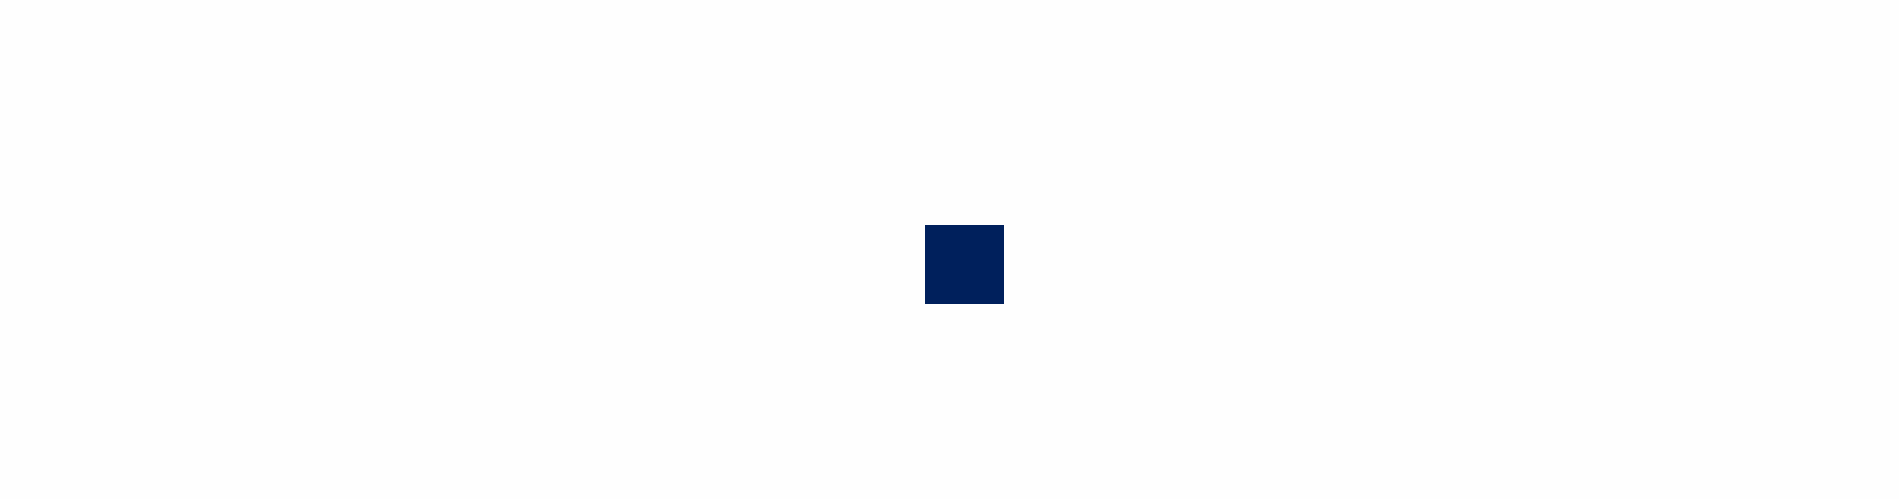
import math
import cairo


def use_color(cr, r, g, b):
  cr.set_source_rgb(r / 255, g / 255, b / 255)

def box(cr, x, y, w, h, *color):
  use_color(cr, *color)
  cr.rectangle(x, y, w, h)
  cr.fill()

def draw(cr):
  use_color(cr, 254, 254, 254)
  cr.paint()
  box(cr, 925, 225, 79, 26, 0, 32, 92)
  box(cr, 925, 251, 79, 26, 0, 32, 92)
  box(cr, 925, 277, 79, 27, 0, 32, 92)


surface = cairo.ImageSurface(cairo.FORMAT_RGB24, 1899, 499)
cr = cairo.Context(surface)
options = cairo.FontOptions()
options.set_hint_metrics(cairo.HINT_METRICS_OFF)
options.set_hint_style(cairo.HINT_STYLE_NONE)
cr.set_font_options(options)
cr.set_miter_limit(4)
draw(cr)
surface.write_to_png("out.png")
